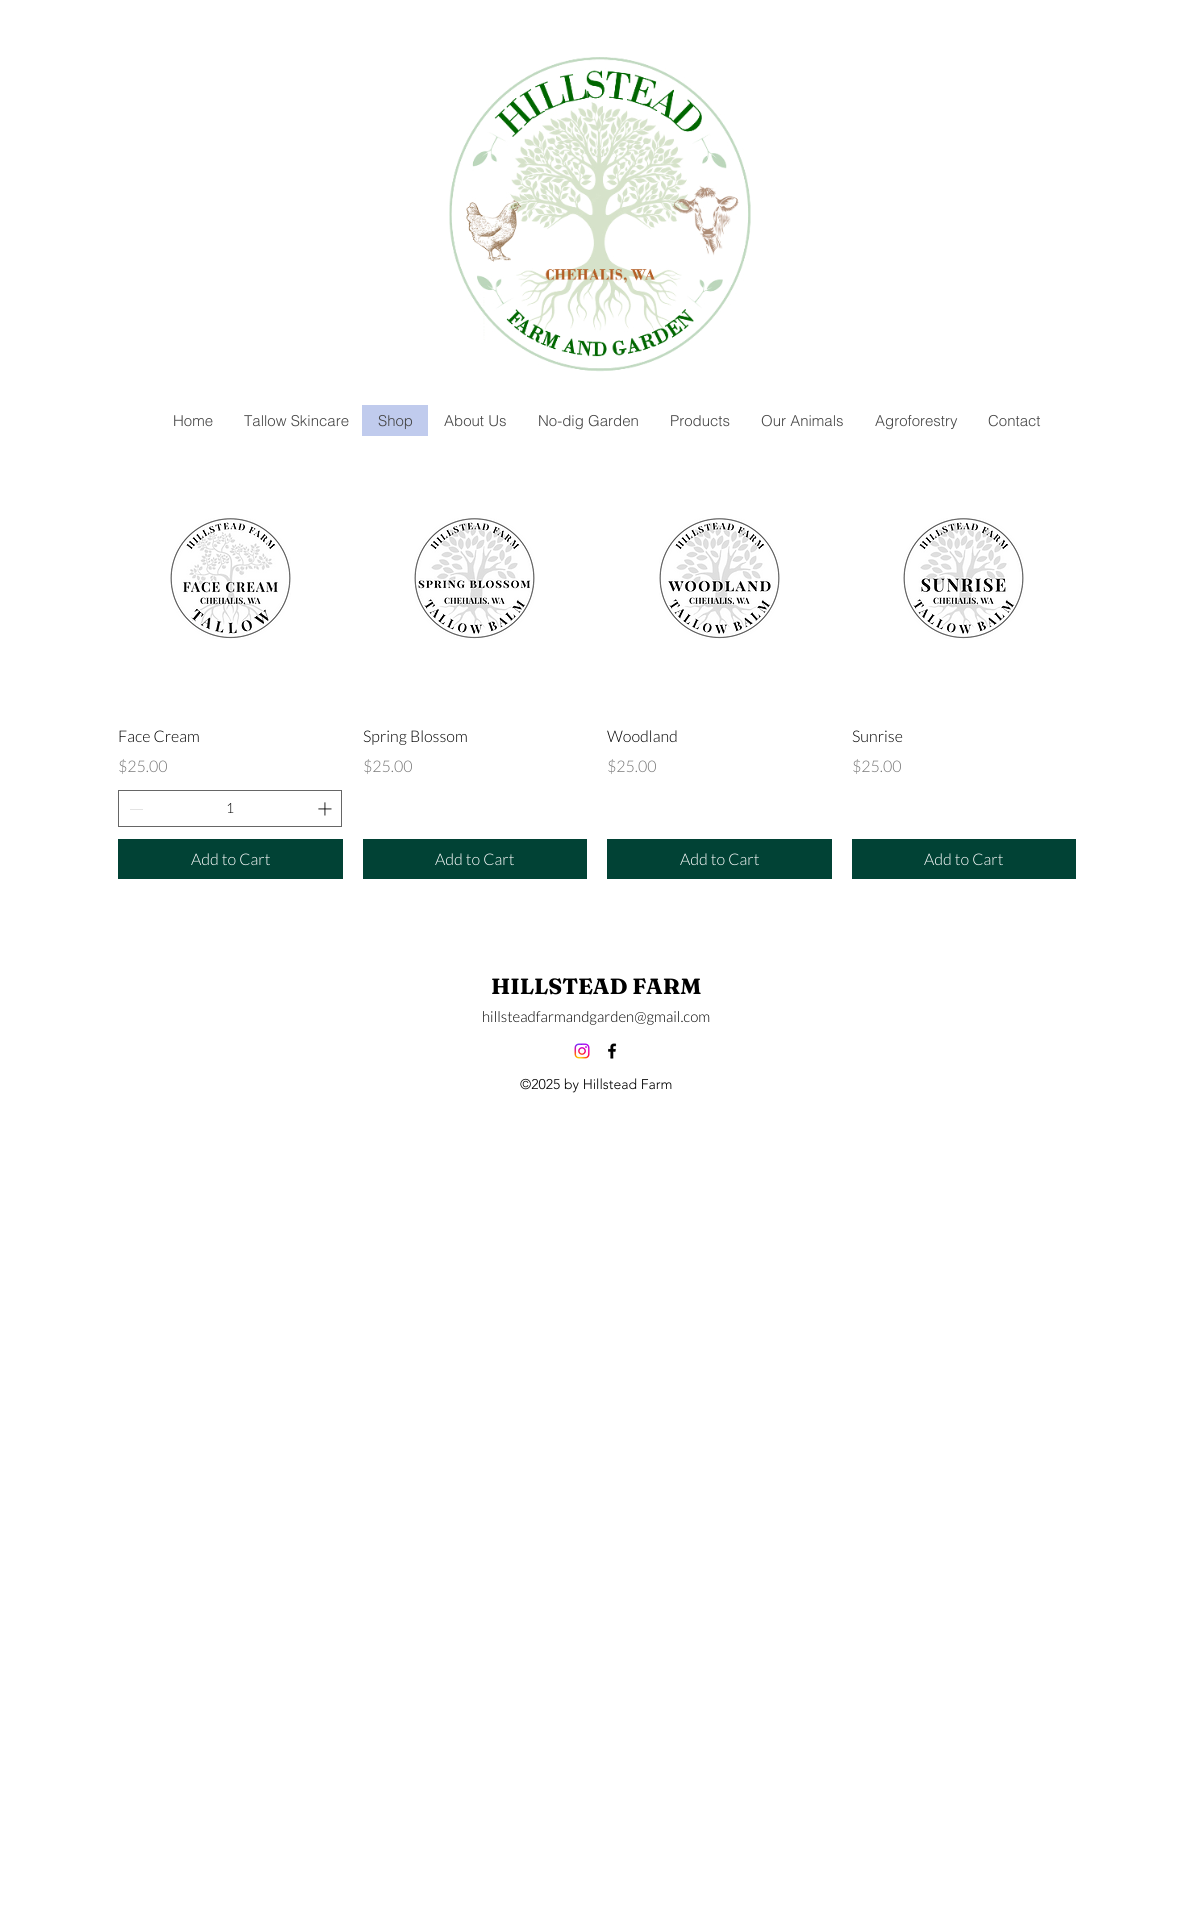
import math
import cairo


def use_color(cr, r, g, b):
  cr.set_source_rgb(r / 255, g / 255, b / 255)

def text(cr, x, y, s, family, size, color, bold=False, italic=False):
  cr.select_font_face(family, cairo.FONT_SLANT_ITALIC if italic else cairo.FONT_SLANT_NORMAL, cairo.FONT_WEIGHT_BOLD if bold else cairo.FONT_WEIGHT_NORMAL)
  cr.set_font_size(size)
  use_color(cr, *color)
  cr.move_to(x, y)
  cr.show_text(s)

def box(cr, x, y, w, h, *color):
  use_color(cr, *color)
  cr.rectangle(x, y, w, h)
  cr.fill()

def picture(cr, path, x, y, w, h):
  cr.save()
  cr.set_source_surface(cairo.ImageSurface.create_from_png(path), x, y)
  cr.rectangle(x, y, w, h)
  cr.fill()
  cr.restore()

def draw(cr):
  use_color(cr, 255, 255, 255)
  cr.paint()
  picture(cr, "img_01.png", 449, 57, 302, 315)
  box(cr, 362, 405, 66, 31, 192, 203, 237)
  picture(cr, "img_02.png", 170, 518, 121, 121)
  cr.rectangle(118.5, 790.5, 223, 36)
  use_color(cr, 102, 102, 102)
  cr.set_line_width(1)
  cr.stroke()
  box(cr, 130, 809, 13, 1, 227, 227, 227)
  picture(cr, "img_03.png", 318, 802, 14, 14)
  box(cr, 118, 839, 225, 40, 1, 66, 53)
  picture(cr, "img_04.png", 414, 518, 121, 121)
  box(cr, 363, 839, 224, 40, 1, 66, 53)
  picture(cr, "img_05.png", 659, 518, 121, 121)
  box(cr, 607, 839, 225, 40, 1, 66, 53)
  picture(cr, "img_06.png", 903, 518, 121, 121)
  box(cr, 852, 839, 224, 40, 1, 66, 53)
  picture(cr, "img_07.png", 574, 1043, 16, 16)
  picture(cr, "img_08.png", 608, 1043, 9, 16)
  text(cr, 173, 426, "Home", "helvetica Light", 15, (68, 68, 68))
  text(cr, 244, 426, "Tallow Skincare", "helvetica Light", 15, (68, 68, 68))
  text(cr, 378, 426, "Shop", "helvetica Light", 15, (68, 68, 68))
  text(cr, 444, 426, "About Us", "helvetica Light", 15, (68, 68, 68))
  text(cr, 538, 426, "No-dig Garden", "helvetica Light", 15, (68, 68, 68))
  text(cr, 670, 426, "Products", "helvetica Light", 15, (68, 68, 68))
  text(cr, 761, 426, "Our Animals", "helvetica Light", 15, (68, 68, 68))
  text(cr, 875, 426, "Agroforestry", "helvetica Light", 15, (68, 68, 68))
  text(cr, 988, 426, "Contact", "helvetica Light", 15, (68, 68, 68))
  text(cr, 118, 742, "Face Cream", "Lato Light", 16, (0, 0, 0))
  text(cr, 118, 772, "$25.00", "Lato Light", 16, (117, 117, 117))
  text(cr, 226, 813, "1", "Lato Light", 14, (0, 0, 0))
  text(cr, 191, 865, "Add to Cart", "Lato Light", 16, (255, 255, 255))
  text(cr, 363, 742, "Spring Blossom", "Lato Light", 16, (0, 0, 0))
  text(cr, 363, 772, "$25.00", "Lato Light", 16, (117, 117, 117))
  text(cr, 435, 865, "Add to Cart", "Lato Light", 16, (255, 255, 255))
  text(cr, 607, 742, "Woodland", "Lato Light", 16, (0, 0, 0))
  text(cr, 607, 772, "$25.00", "Lato Light", 16, (117, 117, 117))
  text(cr, 680, 865, "Add to Cart", "Lato Light", 16, (255, 255, 255))
  text(cr, 852, 742, "Sunrise", "Lato Light", 16, (0, 0, 0))
  text(cr, 852, 772, "$25.00", "Lato Light", 16, (117, 117, 117))
  text(cr, 924, 865, "Add to Cart", "Lato Light", 16, (255, 255, 255))
  text(cr, 491, 994, "HILLSTEAD FARM", "Fraunces", 22, (0, 0, 0), bold=True)
  text(cr, 482, 1022, "hillsteadfarmandgarden@gmail.com", "Lato Light", 15, (0, 0, 0))
  text(cr, 520, 1089, "©2025 by Hillstead Farm", "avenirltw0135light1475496 Light", 14, (0, 0, 0))


surface = cairo.ImageSurface(cairo.FORMAT_RGB24, 1194, 1924)
cr = cairo.Context(surface)
options = cairo.FontOptions()
options.set_hint_metrics(cairo.HINT_METRICS_OFF)
options.set_hint_style(cairo.HINT_STYLE_NONE)
cr.set_font_options(options)
cr.set_miter_limit(4)
draw(cr)
surface.write_to_png("out.png")
